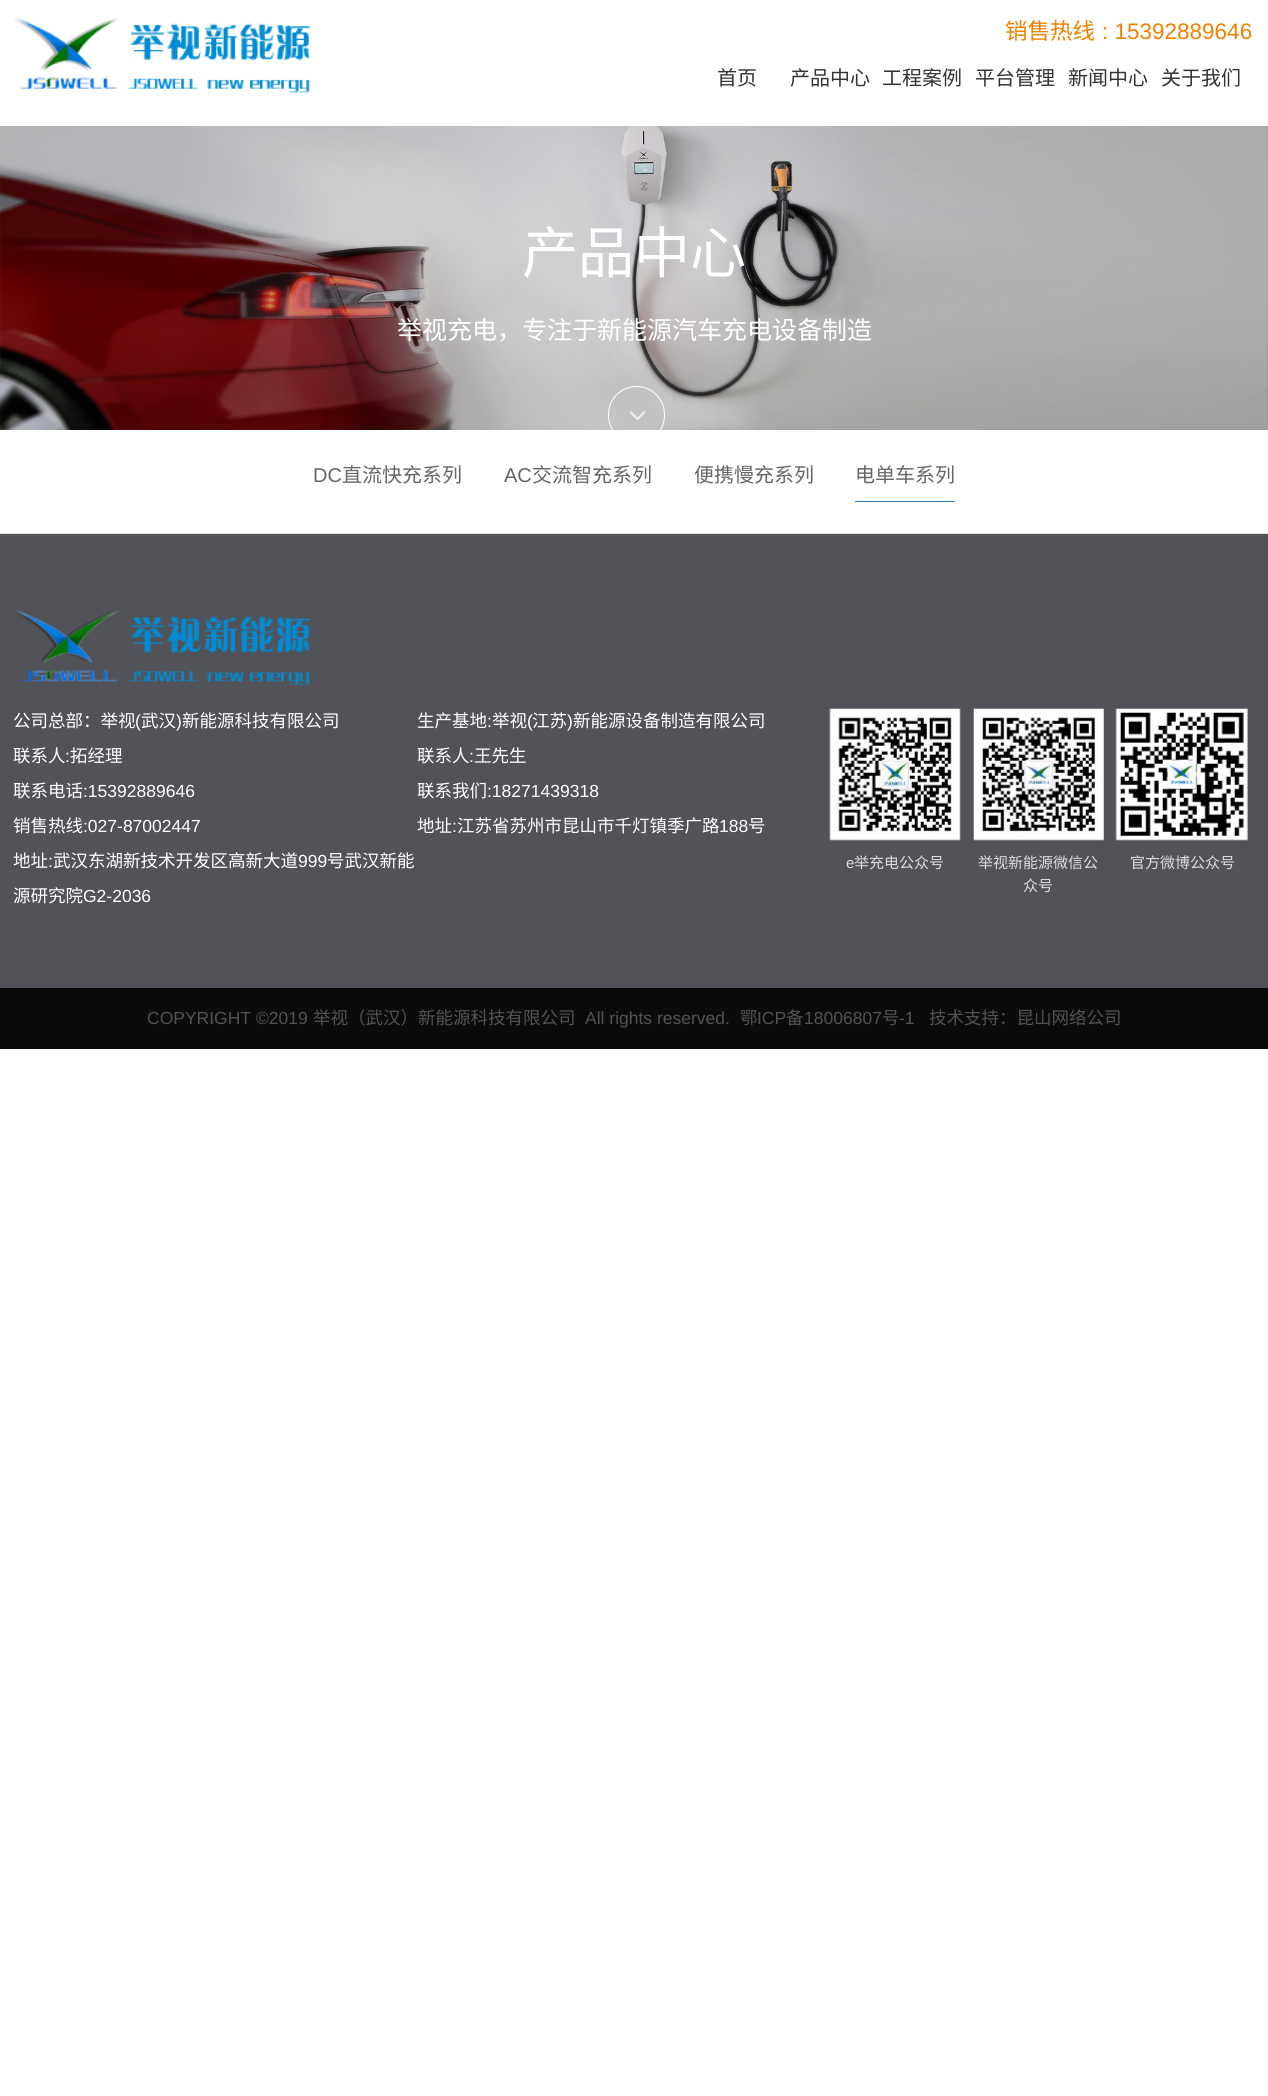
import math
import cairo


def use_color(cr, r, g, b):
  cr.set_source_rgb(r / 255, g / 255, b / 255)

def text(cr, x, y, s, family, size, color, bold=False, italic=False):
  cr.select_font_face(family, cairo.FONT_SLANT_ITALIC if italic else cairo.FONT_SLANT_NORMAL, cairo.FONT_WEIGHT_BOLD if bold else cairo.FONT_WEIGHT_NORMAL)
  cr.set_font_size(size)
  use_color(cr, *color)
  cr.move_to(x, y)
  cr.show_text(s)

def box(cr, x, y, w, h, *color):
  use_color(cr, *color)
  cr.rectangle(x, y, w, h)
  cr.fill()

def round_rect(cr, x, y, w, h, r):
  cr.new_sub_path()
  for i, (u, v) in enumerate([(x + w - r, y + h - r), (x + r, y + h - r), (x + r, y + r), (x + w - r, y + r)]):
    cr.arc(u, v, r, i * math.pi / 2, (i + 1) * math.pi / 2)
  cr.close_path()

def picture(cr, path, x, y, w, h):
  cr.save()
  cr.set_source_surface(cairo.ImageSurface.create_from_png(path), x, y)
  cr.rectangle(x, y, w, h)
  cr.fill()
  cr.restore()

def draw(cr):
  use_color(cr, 255, 255, 255)
  cr.paint()
  picture(cr, "img_01.png", 14, 17, 297, 76)
  picture(cr, "img_02.png", 0, 126, 1268, 304)
  round_rect(cr, 608.5, 386.5, 56, 57, 28)
  use_color(cr, 255, 255, 255)
  cr.set_line_width(1)
  cr.stroke()
  picture(cr, "img_03.png", 629, 411, 17, 9)
  box(cr, 0, 533, 1268, 1, 221, 221, 221)
  box(cr, 855, 501, 100, 1, 51, 122, 183)
  box(cr, 0, 534, 1268, 454, 82, 83, 89)
  picture(cr, "img_04.png", 16, 610, 295, 76)
  picture(cr, "img_05.png", 829, 708, 132, 133)
  picture(cr, "img_06.png", 973, 708, 131, 133)
  picture(cr, "img_07.png", 1115, 708, 133, 133)
  box(cr, 0, 988, 1268, 61, 11, 11, 11)
  text(cr, 1005, 39, "销售热线", "Noto Sans CJK SC", 22.5, (239, 130, 0))
  text(cr, 1102, 39, ": 15392889646", "Liberation Sans", 22.5, (239, 130, 0))
  text(cr, 717, 85, "首页", "Noto Sans CJK SC", 20, (51, 51, 51))
  text(cr, 790, 85, "产品中心", "Noto Sans CJK SC", 20, (51, 51, 51))
  text(cr, 882, 85, "工程案例", "Noto Sans CJK SC", 20, (51, 51, 51))
  text(cr, 975, 85, "平台管理", "Noto Sans CJK SC", 20, (51, 51, 51))
  text(cr, 1068, 85, "新闻中心", "Noto Sans CJK SC", 20, (51, 51, 51))
  text(cr, 1161, 85, "关于我们", "Noto Sans CJK SC", 20, (51, 51, 51))
  text(cr, 522, 273, "产品中心", "Noto Sans CJK SC", 56, (255, 255, 255))
  text(cr, 397, 339, "举视充电，专注于新能源汽车充电设备制造", "Noto Sans CJK SC", 25, (255, 255, 255))
  text(cr, 313, 482, "DC", "Liberation Sans", 20, (102, 102, 102))
  text(cr, 342, 482, "直流快充系列", "Noto Sans CJK SC", 20, (102, 102, 102))
  text(cr, 504, 482, "AC", "Liberation Sans", 20, (102, 102, 102))
  text(cr, 532, 482, "交流智充系列", "Noto Sans CJK SC", 20, (102, 102, 102))
  text(cr, 694, 482, "便携慢充系列", "Noto Sans CJK SC", 20, (102, 102, 102))
  text(cr, 855, 482, "电单车系列", "Noto Sans CJK SC", 20, (102, 102, 102))
  text(cr, 13, 727, "公司总部：举视", "Noto Sans CJK SC", 17.5, (255, 255, 255))
  text(cr, 135, 727, "(", "Liberation Sans", 17.5, (255, 255, 255))
  text(cr, 141, 727, "武汉", "Noto Sans CJK SC", 17.5, (255, 255, 255))
  text(cr, 176, 727, ")", "Liberation Sans", 17.5, (255, 255, 255))
  text(cr, 182, 727, "新能源科技有限公司", "Noto Sans CJK SC", 17.5, (255, 255, 255))
  text(cr, 13, 762, "联系人", "Noto Sans CJK SC", 17.5, (255, 255, 255))
  text(cr, 65, 762, ":", "Liberation Sans", 17.5, (255, 255, 255))
  text(cr, 70, 762, "拓经理", "Noto Sans CJK SC", 17.5, (255, 255, 255))
  text(cr, 13, 797, "联系电话", "Noto Sans CJK SC", 17.5, (255, 255, 255))
  text(cr, 83, 797, ":15392889646", "Liberation Sans", 17.5, (255, 255, 255))
  text(cr, 13, 832, "销售热线", "Noto Sans CJK SC", 17.5, (255, 255, 255))
  text(cr, 83, 832, ":027-87002447", "Liberation Sans", 17.5, (255, 255, 255))
  text(cr, 13, 867, "地址", "Noto Sans CJK SC", 17.5, (255, 255, 255))
  text(cr, 48, 867, ":", "Liberation Sans", 17.5, (255, 255, 255))
  text(cr, 53, 867, "武汉东湖新技术开发区高新大道", "Noto Sans CJK SC", 17.5, (255, 255, 255))
  text(cr, 298, 867, "999", "Liberation Sans", 17.5, (255, 255, 255))
  text(cr, 327, 867, "号武汉新能", "Noto Sans CJK SC", 17.5, (255, 255, 255))
  text(cr, 13, 902, "源研究院", "Noto Sans CJK SC", 17.5, (255, 255, 255))
  text(cr, 83, 902, "G2-2036", "Liberation Sans", 17.5, (255, 255, 255))
  text(cr, 417, 727, "生产基地", "Noto Sans CJK SC", 17.5, (255, 255, 255))
  text(cr, 487, 727, ":", "Liberation Sans", 17.5, (255, 255, 255))
  text(cr, 492, 727, "举视", "Noto Sans CJK SC", 17.5, (255, 255, 255))
  text(cr, 527, 727, "(", "Liberation Sans", 17.5, (255, 255, 255))
  text(cr, 532, 727, "江苏", "Noto Sans CJK SC", 17.5, (255, 255, 255))
  text(cr, 567, 727, ")", "Liberation Sans", 17.5, (255, 255, 255))
  text(cr, 573, 727, "新能源设备制造有限公司", "Noto Sans CJK SC", 17.5, (255, 255, 255))
  text(cr, 417, 762, "联系人", "Noto Sans CJK SC", 17.5, (255, 255, 255))
  text(cr, 469, 762, ":", "Liberation Sans", 17.5, (255, 255, 255))
  text(cr, 474, 762, "王先生", "Noto Sans CJK SC", 17.5, (255, 255, 255))
  text(cr, 417, 797, "联系我们", "Noto Sans CJK SC", 17.5, (255, 255, 255))
  text(cr, 487, 797, ":18271439318", "Liberation Sans", 17.5, (255, 255, 255))
  text(cr, 417, 832, "地址", "Noto Sans CJK SC", 17.5, (255, 255, 255))
  text(cr, 452, 832, ":", "Liberation Sans", 17.5, (255, 255, 255))
  text(cr, 457, 832, "江苏省苏州市昆山市千灯镇季广路", "Noto Sans CJK SC", 17.5, (255, 255, 255))
  text(cr, 719, 832, "188", "Liberation Sans", 17.5, (255, 255, 255))
  text(cr, 748, 832, "号", "Noto Sans CJK SC", 17.5, (255, 255, 255))
  text(cr, 846, 868, "e", "Liberation Sans", 15, (223, 220, 220))
  text(cr, 854, 868, "举充电公众号", "Noto Sans CJK SC", 15, (223, 220, 220))
  text(cr, 978, 868, "举视新能源微信公", "Noto Sans CJK SC", 15, (223, 220, 220))
  text(cr, 1023, 891, "众号", "Noto Sans CJK SC", 15, (223, 220, 220))
  text(cr, 1130, 868, "官方微博公众号", "Noto Sans CJK SC", 15, (223, 220, 220))
  text(cr, 147, 1024, "COPYRIGHT ©2019", "Liberation Sans", 17.5, (83, 82, 82))
  text(cr, 313, 1024, "举视（武汉）新能源科技有限公司", "Noto Sans CJK SC", 17.5, (83, 82, 82))
  text(cr, 585, 1024, "All rights reserved.", "Liberation Sans", 17.5, (83, 82, 82))
  text(cr, 740, 1024, "鄂", "Noto Sans CJK SC", 17.5, (83, 82, 82))
  text(cr, 757, 1024, "ICP", "Liberation Sans", 17.5, (83, 82, 82))
  text(cr, 786, 1024, "备", "Noto Sans CJK SC", 17.5, (83, 82, 82))
  text(cr, 804, 1024, "18006807", "Liberation Sans", 17.5, (83, 82, 82))
  text(cr, 882, 1024, "号", "Noto Sans CJK SC", 17.5, (83, 82, 82))
  text(cr, 899, 1024, "-1", "Liberation Sans", 17.5, (83, 82, 82))
  text(cr, 929, 1024, "技术支持：昆山网络公司", "Noto Sans CJK SC", 17.5, (83, 82, 82))


surface = cairo.ImageSurface(cairo.FORMAT_RGB24, 1268, 2096)
cr = cairo.Context(surface)
options = cairo.FontOptions()
options.set_hint_metrics(cairo.HINT_METRICS_OFF)
options.set_hint_style(cairo.HINT_STYLE_NONE)
cr.set_font_options(options)
cr.set_miter_limit(4)
draw(cr)
surface.write_to_png("out.png")
